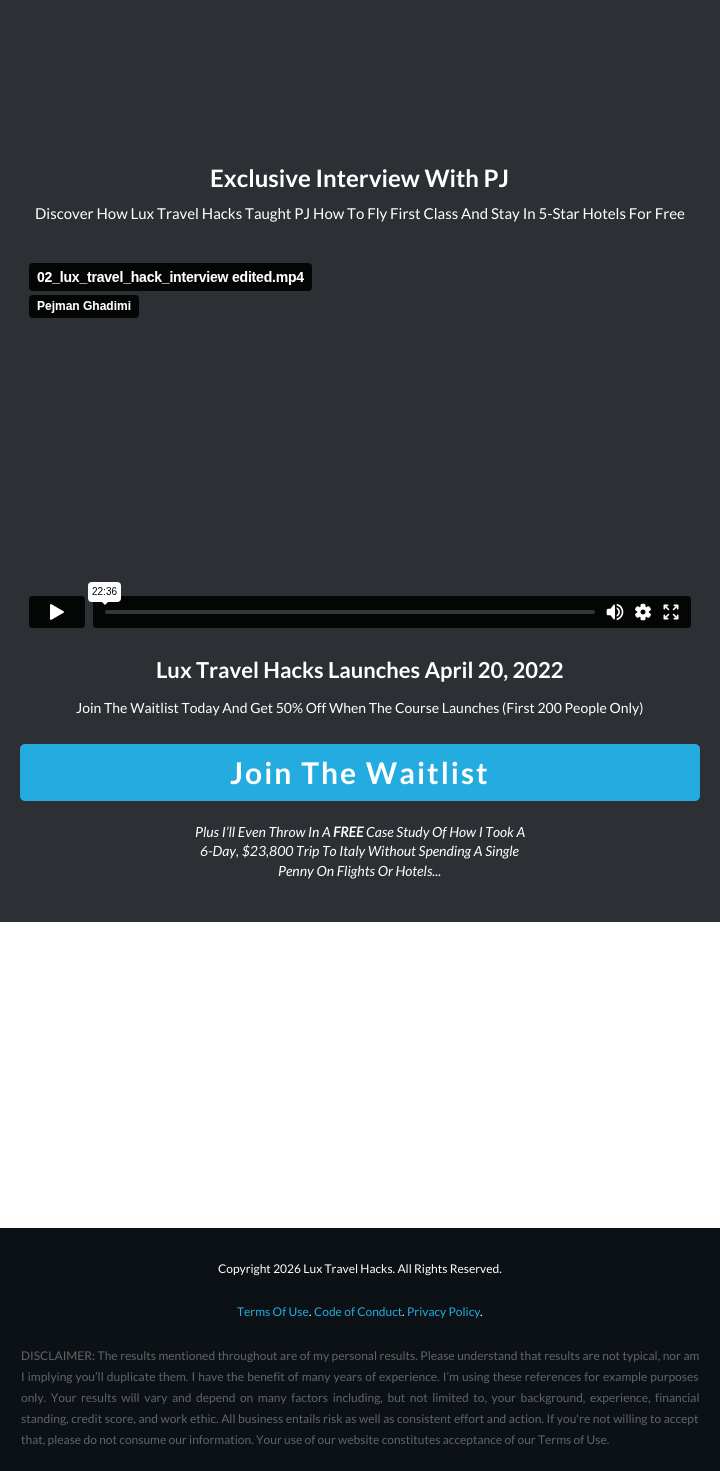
import math
import cairo


def use_color(cr, r, g, b):
  cr.set_source_rgb(r / 255, g / 255, b / 255)

def text(cr, x, y, s, family, size, color, bold=False, italic=False):
  cr.select_font_face(family, cairo.FONT_SLANT_ITALIC if italic else cairo.FONT_SLANT_NORMAL, cairo.FONT_WEIGHT_BOLD if bold else cairo.FONT_WEIGHT_NORMAL)
  cr.set_font_size(size)
  use_color(cr, *color)
  cr.move_to(x, y)
  cr.show_text(s)

def spaced_text(cr, x, y, s, letter, word):
  cr.move_to(x, y)
  for ch in s:
    cr.show_text(ch)
    cr.rel_move_to(letter + word * (ch == ' '), 0)

def box(cr, x, y, w, h, *color):
  use_color(cr, *color)
  cr.rectangle(x, y, w, h)
  cr.fill()

def round_rect(cr, x, y, w, h, r):
  cr.new_sub_path()
  for i, (u, v) in enumerate([(x + w - r, y + h - r), (x + r, y + h - r), (x + r, y + r), (x + w - r, y + r)]):
    cr.arc(u, v, r, i * math.pi / 2, (i + 1) * math.pi / 2)
  cr.close_path()

def picture(cr, path, x, y, w, h):
  cr.save()
  cr.set_source_surface(cairo.ImageSurface.create_from_png(path), x, y)
  cr.rectangle(x, y, w, h)
  cr.fill()
  cr.restore()

def draw(cr):
  use_color(cr, 255, 255, 255)
  cr.paint()
  box(cr, 0, 0, 720, 922, 44, 48, 52)
  picture(cr, "img_01.png", 29, 263, 662, 365)
  use_color(cr, 36, 171, 224)
  round_rect(cr, 20, 744, 680, 57, 5)
  cr.fill()
  box(cr, 0, 1228, 720, 243, 12, 17, 21)
  text(cr, 210, 187, "Exclusive Interview With PJ", "Lato", 24, (255, 255, 255), bold=True)
  text(cr, 35, 219, "Discover How Lux Travel Hacks Taught PJ How To Fly First Class And Stay In 5-Star Hotels For Free", "Lato", 15, (255, 255, 255))
  text(cr, 156, 678, "Lux Travel Hacks Launches April 20, 2022", "Lato", 22, (255, 255, 255), bold=True)
  text(cr, 76, 713, "Join The Waitlist Today And Get 50% Off When The Course Launches (First 200 People Only)", "Lato", 14, (255, 255, 255))
  cr.select_font_face("Lato", cairo.FONT_SLANT_NORMAL, cairo.FONT_WEIGHT_BOLD)
  cr.set_font_size(30)
  spaced_text(cr, 230, 784, "Join The Waitlist", 2, 0)
  text(cr, 195, 837, "Plus I’ll Even Throw In A", "Lato", 14, (255, 255, 255), italic=True)
  text(cr, 333, 837, "FREE", "Lato", 14, (255, 255, 255), bold=True, italic=True)
  text(cr, 366, 837, "Case Study Of How I Took A", "Lato", 14, (255, 255, 255), italic=True)
  text(cr, 200, 856, "6-Day, $23,800 Trip To Italy Without Spending A Single", "Lato", 14, (255, 255, 255), italic=True)
  text(cr, 278, 876, "Penny On Flights Or Hotels...", "Lato", 14, (255, 255, 255), italic=True)
  text(cr, 218, 1273, "Copyright 2026 Lux Travel Hacks. All Rights Reserved.", "Lato", 12, (255, 255, 255))
  text(cr, 237, 1316, "Terms Of Use", "Lato", 12, (36, 171, 224))
  text(cr, 309, 1316, ".", "Lato", 12, (255, 255, 255))
  text(cr, 314, 1316, "Code of Conduct", "Lato", 12, (36, 171, 224))
  text(cr, 402, 1316, ".", "Lato", 12, (255, 255, 255))
  text(cr, 407, 1316, "Privacy Policy", "Lato", 12, (36, 171, 224))
  text(cr, 480, 1316, ".", "Lato", 12, (255, 255, 255))
  use_color(cr, 97, 100, 103)
  spaced_text(cr, 21, 1360, "DISCLAIMER: The results mentioned throughout are of my personal results. Please understand that results are not typical, nor am", 0, 0.2)
  spaced_text(cr, 21, 1381, "I implying you’ll duplicate them. I have the benefit of many years of experience. I’m using these references for example purposes", 0, 0.8)
  spaced_text(cr, 21, 1402, "only. Your results will vary and depend on many factors including, but not limited to, your background, experience, financial", 0, 2.25)
  spaced_text(cr, 21, 1423, "standing, credit score, and work ethic. All business entails risk as well as consistent effort and action. If you're not willing to accept", 0, 0.25)
  text(cr, 21, 1444, "that, please do not consume our information. Your use of our website constitutes acceptance of our Terms of Use.", "Lato", 12, (97, 100, 103))


surface = cairo.ImageSurface(cairo.FORMAT_RGB24, 720, 1471)
cr = cairo.Context(surface)
options = cairo.FontOptions()
options.set_hint_metrics(cairo.HINT_METRICS_OFF)
options.set_hint_style(cairo.HINT_STYLE_NONE)
cr.set_font_options(options)
cr.set_miter_limit(4)
draw(cr)
surface.write_to_png("out.png")
